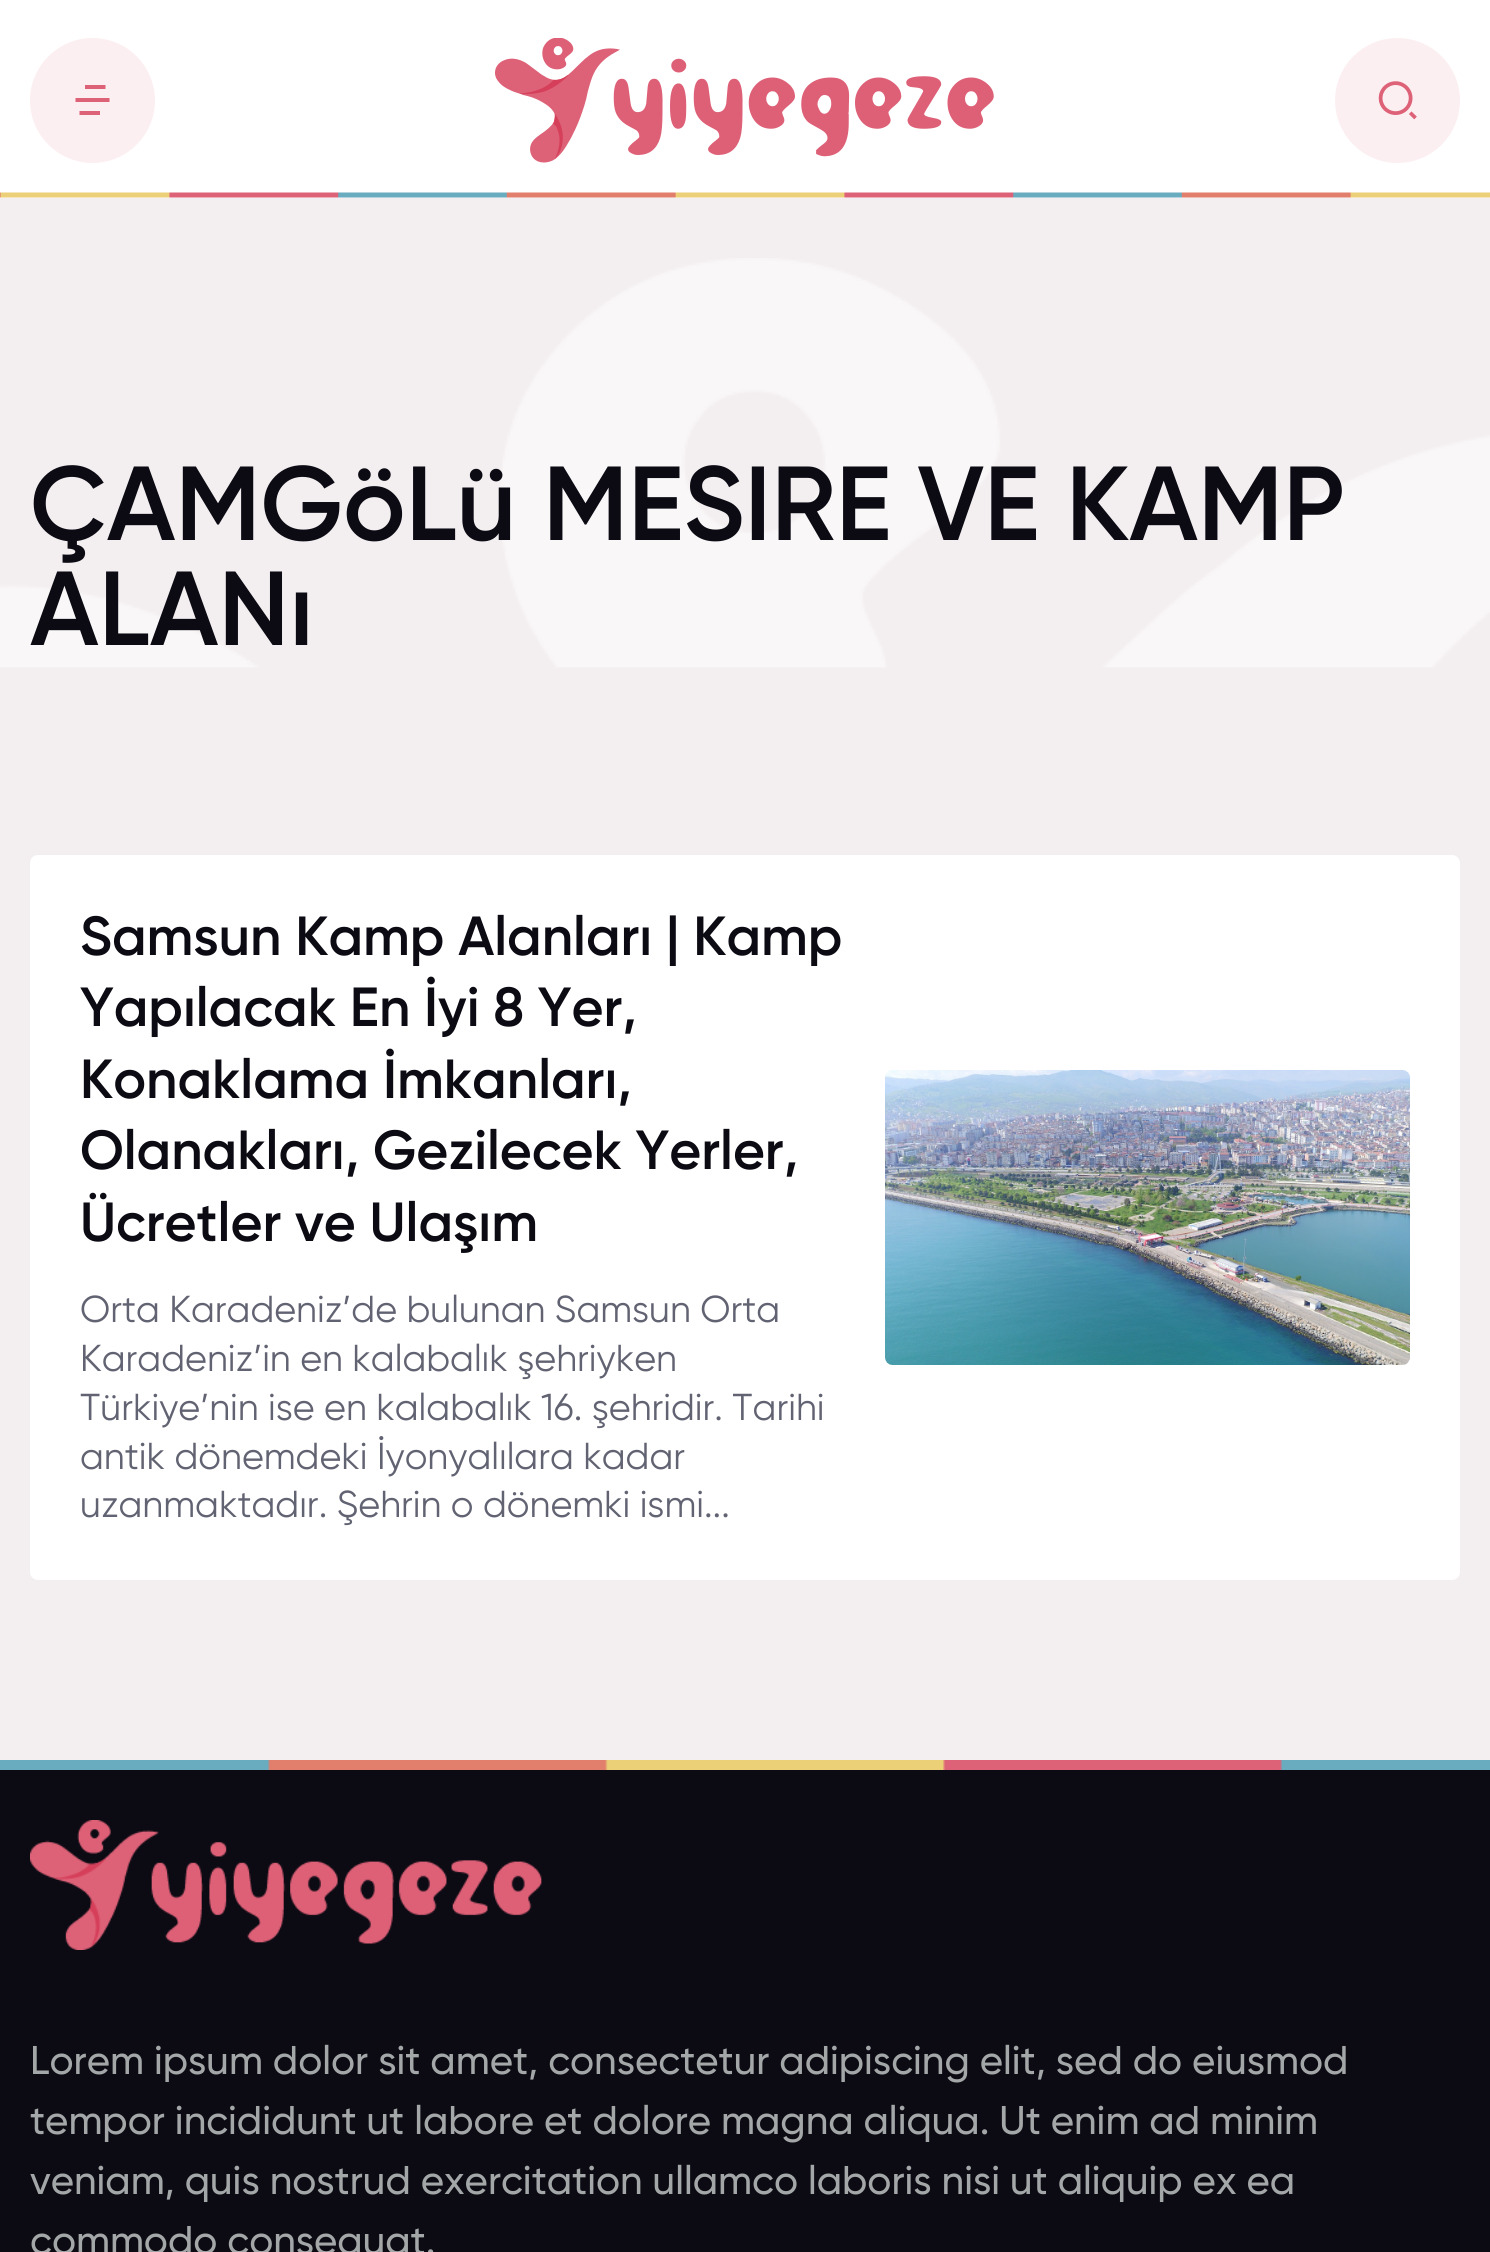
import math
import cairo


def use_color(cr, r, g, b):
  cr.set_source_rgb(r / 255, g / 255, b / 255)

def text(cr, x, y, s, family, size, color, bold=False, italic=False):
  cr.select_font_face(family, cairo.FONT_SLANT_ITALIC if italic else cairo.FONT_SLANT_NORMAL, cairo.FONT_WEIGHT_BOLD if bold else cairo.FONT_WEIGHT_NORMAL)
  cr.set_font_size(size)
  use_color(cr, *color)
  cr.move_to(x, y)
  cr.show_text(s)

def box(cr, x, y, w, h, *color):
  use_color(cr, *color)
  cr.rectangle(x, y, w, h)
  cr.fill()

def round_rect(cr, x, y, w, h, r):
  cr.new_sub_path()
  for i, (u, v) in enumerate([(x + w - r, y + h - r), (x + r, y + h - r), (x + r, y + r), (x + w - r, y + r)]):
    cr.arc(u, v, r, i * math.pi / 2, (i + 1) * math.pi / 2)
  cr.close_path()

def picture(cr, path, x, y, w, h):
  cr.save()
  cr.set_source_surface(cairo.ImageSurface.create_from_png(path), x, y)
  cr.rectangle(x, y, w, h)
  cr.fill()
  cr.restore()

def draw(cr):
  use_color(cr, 243, 238, 239)
  cr.paint()
  box(cr, 0, 0, 1490, 198, 255, 255, 255)
  use_color(cr, 252, 239, 241)
  cr.arc(92.5, 100.5, 62.5, 0, 2 * math.pi)
  cr.fill()
  use_color(cr, 221, 97, 119)
  cr.new_path()
  cr.move_to(100, 111)
  cr.line_to(100, 115)
  cr.line_to(79.5, 115)
  cr.line_to(79.5, 111)
  cr.close_path()
  cr.move_to(109.5, 98)
  cr.line_to(109.5, 102)
  cr.line_to(75.5, 102)
  cr.line_to(75.5, 98)
  cr.close_path()
  cr.move_to(105.5, 85)
  cr.line_to(105.5, 89)
  cr.line_to(85, 89)
  cr.line_to(85, 85)
  cr.close_path()
  cr.fill()
  picture(cr, "img_01.png", 495, 38, 499, 125)
  use_color(cr, 252, 239, 241)
  cr.arc(1397.5, 100.5, 62.5, 0, 2 * math.pi)
  cr.fill()
  picture(cr, "img_02.png", 1378, 81, 39, 39)
  picture(cr, "img_03.png", 0, 192, 1490, 6)
  picture(cr, "img_04.png", 0, 258, 1490, 410)
  use_color(cr, 255, 255, 255)
  round_rect(cr, 30, 855, 1430, 725, 8)
  cr.fill()
  picture(cr, "img_05.png", 885, 1070, 525, 295)
  picture(cr, "img_06.png", 0, 1760, 1490, 10)
  box(cr, 0, 1770, 1490, 482, 12, 11, 20)
  picture(cr, "img_07.png", 30, 1820, 512, 130)
  text(cr, 30, 540, "ÇAMGöLü MESIRE VE KAMP", "Gilroy SemiBold", 105, (12, 11, 20))
  text(cr, 30, 645, "ALANı", "Gilroy SemiBold", 105, (12, 11, 20))
  text(cr, 80, 955, "Samsun Kamp Alanları | Kamp", "Gilroy SemiBold", 55, (12, 11, 20))
  text(cr, 80, 1026, "Yapılacak En İyi 8 Yer,", "Gilroy SemiBold", 55, (12, 11, 20))
  text(cr, 80, 1098, "Konaklama İmkanları,", "Gilroy SemiBold", 55, (12, 11, 20))
  text(cr, 80, 1169, "Olanakları, Gezilecek Yerler,", "Gilroy SemiBold", 55, (12, 11, 20))
  text(cr, 80, 1241, "Ücretler ve Ulaşım", "Gilroy SemiBold", 55, (12, 11, 20))
  text(cr, 80, 1322, "Orta Karadeniz’de bulunan Samsun Orta", "Gilroy", 37.5, (98, 99, 114))
  text(cr, 80, 1371, "Karadeniz’in en kalabalık şehriyken", "Gilroy", 37.5, (98, 99, 114))
  text(cr, 80, 1420, "Türkiye’nin ise en kalabalık 16. şehridir. Tarihi", "Gilroy", 37.5, (98, 99, 114))
  text(cr, 80, 1469, "antik dönemdeki İyonyalılara kadar", "Gilroy", 37.5, (98, 99, 114))
  text(cr, 80, 1517, "uzanmaktadır. Şehrin o dönemki ismi...", "Gilroy", 37.5, (98, 99, 114))
  text(cr, 30, 2074, "Lorem ipsum dolor sit amet, consectetur adipiscing elit, sed do eiusmod", "Gilroy Medium", 40, (164, 167, 168))
  text(cr, 30, 2134, "tempor incididunt ut labore et dolore magna aliqua. Ut enim ad minim", "Gilroy Medium", 40, (164, 167, 168))
  text(cr, 30, 2194, "veniam, quis nostrud exercitation ullamco laboris nisi ut aliquip ex ea", "Gilroy Medium", 40, (164, 167, 168))
  text(cr, 30, 2254, "commodo consequat.", "Gilroy Medium", 40, (164, 167, 168))


surface = cairo.ImageSurface(cairo.FORMAT_RGB24, 1490, 2252)
cr = cairo.Context(surface)
options = cairo.FontOptions()
options.set_hint_metrics(cairo.HINT_METRICS_OFF)
options.set_hint_style(cairo.HINT_STYLE_NONE)
cr.set_font_options(options)
cr.set_miter_limit(4)
draw(cr)
surface.write_to_png("out.png")
